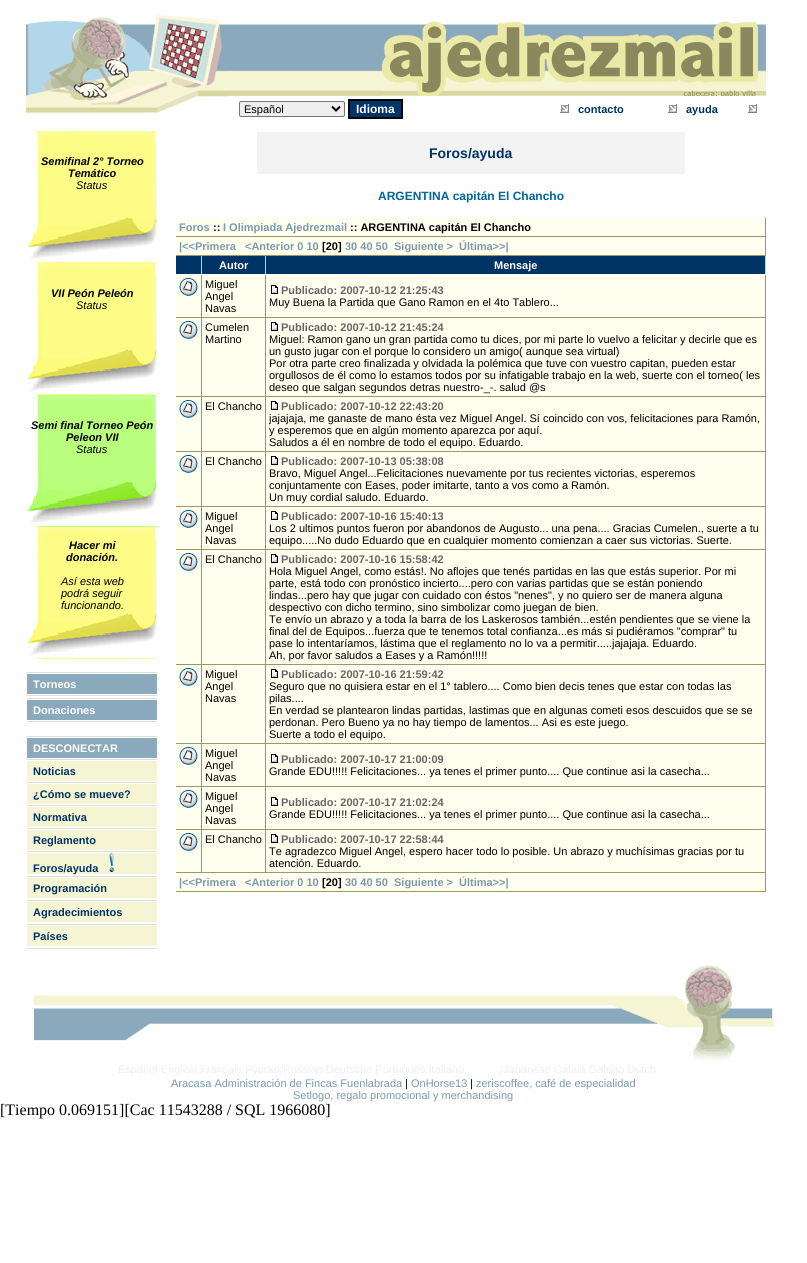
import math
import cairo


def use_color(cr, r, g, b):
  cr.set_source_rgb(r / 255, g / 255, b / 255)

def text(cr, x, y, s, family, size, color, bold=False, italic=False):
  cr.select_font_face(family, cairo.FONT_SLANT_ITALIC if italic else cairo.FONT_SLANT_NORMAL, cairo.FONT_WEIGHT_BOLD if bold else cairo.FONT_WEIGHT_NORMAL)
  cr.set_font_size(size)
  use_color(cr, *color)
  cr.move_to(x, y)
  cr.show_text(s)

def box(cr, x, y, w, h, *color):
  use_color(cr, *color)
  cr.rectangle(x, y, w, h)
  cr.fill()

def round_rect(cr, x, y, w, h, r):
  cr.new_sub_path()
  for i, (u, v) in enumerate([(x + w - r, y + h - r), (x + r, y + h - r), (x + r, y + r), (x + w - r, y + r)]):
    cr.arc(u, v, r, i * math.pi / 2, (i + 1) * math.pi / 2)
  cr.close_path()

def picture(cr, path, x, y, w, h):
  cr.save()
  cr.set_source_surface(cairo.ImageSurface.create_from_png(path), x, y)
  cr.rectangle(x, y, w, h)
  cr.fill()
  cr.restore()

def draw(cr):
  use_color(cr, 255, 255, 255)
  cr.paint()
  picture(cr, "img_01.png", 26, 15, 202, 99)
  picture(cr, "img_02.png", 228, 24, 153, 72)
  picture(cr, "img_03.png", 381, 21, 385, 75)
  use_color(cr, 238, 238, 238)
  round_rect(cr, 239.5, 101.5, 105, 15, 1.5)
  cr.fill_preserve()
  use_color(cr, 118, 118, 118)
  cr.set_line_width(1)
  cr.stroke()
  cr.new_path()
  cr.move_to(332, 106.5)
  cr.line_to(336, 110.5)
  cr.line_to(340, 106.5)
  use_color(cr, 0, 0, 0)
  cr.set_line_width(2)
  cr.stroke()
  use_color(cr, 0, 51, 102)
  cr.rectangle(349, 100, 53, 18)
  cr.fill_preserve()
  use_color(cr, 0, 0, 0)
  cr.stroke()
  picture(cr, "img_04.png", 560, 104, 9, 9)
  picture(cr, "img_04.png", 668, 104, 9, 9)
  picture(cr, "img_04.png", 748, 104, 9, 9)
  picture(cr, "img_05.png", 27, 131, 130, 132)
  picture(cr, "img_05.png", 27, 263, 130, 132)
  picture(cr, "img_06.png", 27, 395, 130, 132)
  picture(cr, "img_05.png", 27, 527, 130, 132)
  box(cr, 27, 672, 130, 1, 221, 221, 221)
  box(cr, 27, 674, 130, 20, 139, 169, 188)
  box(cr, 27, 695, 130, 1, 221, 221, 221)
  box(cr, 27, 698, 130, 1, 221, 221, 221)
  box(cr, 27, 700, 130, 20, 139, 169, 188)
  box(cr, 27, 721, 130, 1, 221, 221, 221)
  box(cr, 27, 736, 130, 1, 221, 221, 221)
  box(cr, 27, 738, 130, 20, 139, 169, 188)
  box(cr, 27, 759, 130, 1, 221, 221, 221)
  box(cr, 27, 761, 130, 20, 245, 244, 211)
  box(cr, 27, 782, 130, 1, 221, 221, 221)
  box(cr, 27, 784, 130, 20, 245, 244, 211)
  box(cr, 27, 805, 130, 1, 221, 221, 221)
  box(cr, 27, 807, 130, 20, 245, 244, 211)
  box(cr, 27, 828, 130, 1, 221, 221, 221)
  box(cr, 27, 830, 130, 20, 245, 244, 211)
  box(cr, 27, 851, 130, 1, 221, 221, 221)
  box(cr, 27, 853, 130, 21, 245, 244, 211)
  picture(cr, "img_07.png", 109, 853, 5, 19)
  box(cr, 27, 876, 130, 1, 221, 221, 221)
  box(cr, 27, 878, 130, 20, 245, 244, 211)
  box(cr, 27, 900, 130, 1, 221, 221, 221)
  box(cr, 27, 902, 130, 20, 245, 244, 211)
  box(cr, 27, 924, 130, 1, 221, 221, 221)
  box(cr, 27, 926, 130, 20, 245, 244, 211)
  box(cr, 27, 948, 130, 1, 221, 221, 221)
  box(cr, 257, 132, 428, 42, 243, 243, 243)
  box(cr, 176, 218, 589, 18, 255, 255, 239)
  box(cr, 765, 218, 1, 38, 153, 153, 102)
  box(cr, 176, 236, 590, 1, 153, 153, 102)
  box(cr, 176, 237, 589, 18, 255, 255, 239)
  box(cr, 176, 255, 590, 1, 153, 153, 102)
  box(cr, 176, 256, 25, 18, 0, 51, 102)
  box(cr, 201, 256, 1, 19, 204, 204, 204)
  box(cr, 201, 274, 1, 1, 255, 255, 255)
  box(cr, 202, 256, 63, 18, 0, 51, 102)
  box(cr, 265, 256, 1, 19, 204, 204, 204)
  box(cr, 265, 274, 1, 1, 255, 255, 255)
  box(cr, 266, 256, 499, 18, 0, 51, 102)
  box(cr, 765, 256, 1, 19, 204, 204, 204)
  box(cr, 765, 274, 1, 1, 255, 255, 255)
  box(cr, 176, 275, 25, 42, 255, 255, 239)
  box(cr, 201, 275, 1, 598, 153, 153, 102)
  box(cr, 176, 317, 26, 1, 153, 153, 102)
  picture(cr, "img_08.png", 179, 278, 19, 18)
  box(cr, 202, 275, 63, 42, 255, 255, 239)
  box(cr, 265, 275, 1, 598, 153, 153, 102)
  box(cr, 202, 317, 64, 1, 153, 153, 102)
  box(cr, 266, 275, 499, 42, 255, 255, 239)
  box(cr, 765, 275, 1, 617, 153, 153, 102)
  box(cr, 266, 317, 500, 1, 153, 153, 102)
  picture(cr, "img_09.png", 271, 285, 7, 9)
  box(cr, 176, 318, 25, 78, 255, 255, 239)
  box(cr, 176, 396, 590, 1, 153, 153, 102)
  picture(cr, "img_08.png", 179, 321, 19, 18)
  box(cr, 202, 318, 63, 78, 255, 255, 239)
  box(cr, 266, 318, 499, 78, 255, 255, 239)
  picture(cr, "img_09.png", 271, 322, 7, 9)
  box(cr, 176, 397, 25, 54, 255, 255, 239)
  box(cr, 176, 451, 590, 1, 153, 153, 102)
  picture(cr, "img_08.png", 179, 400, 19, 18)
  box(cr, 202, 397, 63, 54, 255, 255, 239)
  box(cr, 266, 397, 499, 54, 255, 255, 239)
  picture(cr, "img_09.png", 271, 401, 7, 9)
  box(cr, 176, 452, 25, 54, 255, 255, 239)
  box(cr, 176, 506, 590, 1, 153, 153, 102)
  picture(cr, "img_08.png", 179, 455, 19, 18)
  box(cr, 202, 452, 63, 54, 255, 255, 239)
  box(cr, 266, 452, 499, 54, 255, 255, 239)
  picture(cr, "img_09.png", 271, 456, 7, 9)
  box(cr, 176, 507, 25, 42, 255, 255, 239)
  box(cr, 176, 549, 590, 1, 153, 153, 102)
  picture(cr, "img_08.png", 179, 510, 19, 18)
  box(cr, 202, 507, 63, 42, 255, 255, 239)
  box(cr, 266, 507, 499, 42, 255, 255, 239)
  picture(cr, "img_09.png", 271, 511, 7, 9)
  box(cr, 176, 550, 25, 114, 255, 255, 239)
  box(cr, 176, 664, 590, 1, 153, 153, 102)
  picture(cr, "img_08.png", 179, 553, 19, 18)
  box(cr, 202, 550, 63, 114, 255, 255, 239)
  box(cr, 266, 550, 499, 114, 255, 255, 239)
  picture(cr, "img_09.png", 271, 554, 7, 9)
  box(cr, 176, 665, 25, 78, 255, 255, 239)
  box(cr, 176, 743, 590, 1, 153, 153, 102)
  picture(cr, "img_08.png", 179, 668, 19, 18)
  box(cr, 202, 665, 63, 78, 255, 255, 239)
  box(cr, 266, 665, 499, 78, 255, 255, 239)
  picture(cr, "img_09.png", 271, 669, 7, 9)
  box(cr, 176, 744, 25, 42, 255, 255, 239)
  box(cr, 176, 786, 590, 1, 153, 153, 102)
  picture(cr, "img_08.png", 179, 747, 19, 18)
  box(cr, 202, 744, 63, 42, 255, 255, 239)
  box(cr, 266, 744, 499, 42, 255, 255, 239)
  picture(cr, "img_09.png", 271, 754, 7, 9)
  box(cr, 176, 787, 25, 42, 255, 255, 239)
  box(cr, 176, 829, 590, 1, 153, 153, 102)
  picture(cr, "img_08.png", 179, 790, 19, 18)
  box(cr, 202, 787, 63, 42, 255, 255, 239)
  box(cr, 266, 787, 499, 42, 255, 255, 239)
  picture(cr, "img_09.png", 271, 797, 7, 9)
  box(cr, 176, 830, 25, 42, 255, 255, 239)
  box(cr, 176, 872, 590, 1, 153, 153, 102)
  picture(cr, "img_08.png", 179, 833, 19, 18)
  box(cr, 202, 830, 63, 42, 255, 255, 239)
  box(cr, 266, 830, 499, 42, 255, 255, 239)
  picture(cr, "img_09.png", 271, 834, 7, 9)
  box(cr, 176, 873, 589, 18, 255, 255, 239)
  box(cr, 176, 891, 590, 1, 153, 153, 102)
  picture(cr, "img_10.png", 34, 965, 740, 95)
  text(cr, 244, 113, "Español", "Liberation Sans", 11, (0, 0, 0))
  text(cr, 356, 113, "Idioma", "Liberation Sans", 12, (255, 255, 255), bold=True)
  text(cr, 578, 113, "contacto", "Liberation Sans", 11, (0, 51, 102), bold=True)
  text(cr, 686, 113, "ayuda", "Liberation Sans", 11, (0, 51, 102), bold=True)
  text(cr, 41, 165, "Semifinal 2° Torneo", "Liberation Sans", 11, (0, 0, 0), bold=True, italic=True)
  text(cr, 68, 177, "Temático", "Liberation Sans", 11, (0, 0, 0), bold=True, italic=True)
  text(cr, 76, 189, "Status", "Liberation Sans", 11, (0, 0, 0), italic=True)
  text(cr, 51, 297, "VII Peón Peleón", "Liberation Sans", 11, (0, 0, 0), bold=True, italic=True)
  text(cr, 76, 309, "Status", "Liberation Sans", 11, (0, 0, 0), italic=True)
  text(cr, 31, 429, "Semi final Torneo Peón", "Liberation Sans", 11, (0, 0, 0), bold=True, italic=True)
  text(cr, 66, 441, "Peleon VII", "Liberation Sans", 11, (0, 0, 0), bold=True, italic=True)
  text(cr, 76, 453, "Status", "Liberation Sans", 11, (0, 0, 0), italic=True)
  text(cr, 69, 549, "Hacer mi", "Liberation Sans", 11, (0, 0, 0), bold=True, italic=True)
  text(cr, 66, 561, "donación.", "Liberation Sans", 11, (0, 0, 0), bold=True, italic=True)
  text(cr, 61, 585, "Así esta web", "Liberation Sans", 11, (0, 0, 0), italic=True)
  text(cr, 61, 597, "podrá seguir", "Liberation Sans", 11, (0, 0, 0), italic=True)
  text(cr, 61, 609, "funcionando.", "Liberation Sans", 11, (0, 0, 0), italic=True)
  text(cr, 33, 688, "Torneos", "Liberation Sans", 11, (255, 255, 255), bold=True)
  text(cr, 33, 714, "Donaciones", "Liberation Sans", 11, (255, 255, 255), bold=True)
  text(cr, 33, 752, "DESCONECTAR", "Liberation Sans", 11, (255, 255, 255), bold=True)
  text(cr, 33, 775, "Noticias", "Liberation Sans", 11, (0, 51, 102), bold=True)
  text(cr, 33, 798, "¿Cómo se mueve?", "Liberation Sans", 11, (0, 51, 102), bold=True)
  text(cr, 33, 821, "Normativa", "Liberation Sans", 11, (0, 51, 102), bold=True)
  text(cr, 33, 844, "Reglamento", "Liberation Sans", 11, (0, 51, 102), bold=True)
  text(cr, 33, 872, "Foros/ayuda", "Liberation Sans", 11, (0, 51, 102), bold=True)
  text(cr, 33, 892, "Programación", "Liberation Sans", 11, (0, 51, 102), bold=True)
  text(cr, 33, 916, "Agradecimientos", "Liberation Sans", 11, (0, 51, 102), bold=True)
  text(cr, 33, 940, "Países", "Liberation Sans", 11, (0, 51, 102), bold=True)
  text(cr, 429, 158, "Foros/ayuda", "Liberation Sans", 14, (0, 51, 102), bold=True)
  text(cr, 378, 200, "ARGENTINA capitán El Chancho", "Liberation Sans", 12, (0, 102, 153), bold=True)
  text(cr, 179, 231, "Foros", "Liberation Sans", 11, (123, 153, 172), bold=True)
  text(cr, 213, 231, "::", "Liberation Sans", 11, (0, 0, 0), bold=True)
  text(cr, 223, 231, "I Olimpiada Ajedrezmail", "Liberation Sans", 11, (123, 153, 172), bold=True)
  text(cr, 350, 231, ":: ARGENTINA capitán El Chancho", "Liberation Sans", 11, (0, 0, 0), bold=True)
  text(cr, 179, 250, "|<<Primera", "Liberation Sans", 11, (123, 153, 172), bold=True)
  text(cr, 245, 250, "<Anterior 0 10", "Liberation Sans", 11, (123, 153, 172), bold=True)
  text(cr, 322, 250, "[20]", "Liberation Sans", 11, (0, 0, 0), bold=True)
  text(cr, 345, 250, "30 40 50", "Liberation Sans", 11, (123, 153, 172), bold=True)
  text(cr, 394, 250, "Siguiente >", "Liberation Sans", 11, (123, 153, 172), bold=True)
  text(cr, 459, 250, "Última>>|", "Liberation Sans", 11, (123, 153, 172), bold=True)
  text(cr, 219, 269, "Autor", "Liberation Sans", 11, (255, 255, 255), bold=True)
  text(cr, 494, 269, "Mensaje", "Liberation Sans", 11, (255, 255, 255), bold=True)
  text(cr, 205, 288, "Miguel", "Liberation Sans", 11, (0, 0, 0))
  text(cr, 205, 300, "Angel", "Liberation Sans", 11, (0, 0, 0))
  text(cr, 205, 312, "Navas", "Liberation Sans", 11, (0, 0, 0))
  text(cr, 281, 294, "Publicado: 2007-10-12 21:25:43", "Liberation Sans", 11, (102, 102, 102), bold=True)
  text(cr, 269, 306, "Muy Buena la Partida que Gano Ramon en el 4to Tablero...", "Liberation Sans", 11, (0, 0, 0))
  text(cr, 205, 331, "Cumelen", "Liberation Sans", 11, (0, 0, 0))
  text(cr, 205, 343, "Martino", "Liberation Sans", 11, (0, 0, 0))
  text(cr, 281, 331, "Publicado: 2007-10-12 21:45:24", "Liberation Sans", 11, (102, 102, 102), bold=True)
  text(cr, 269, 343, "Miguel: Ramon gano un gran partida como tu dices, por mi parte lo vuelvo a felicitar y decirle que es", "Liberation Sans", 11, (0, 0, 0))
  text(cr, 269, 355, "un gusto jugar con el porque lo considero un amigo( aunque sea virtual)", "Liberation Sans", 11, (0, 0, 0))
  text(cr, 269, 367, "Por otra parte creo finalizada y olvidada la polémica que tuve con vuestro capitan, pueden estar", "Liberation Sans", 11, (0, 0, 0))
  text(cr, 269, 379, "orgullosos de él como lo estamos todos por su infatigable trabajo en la web, suerte con el torneo( les", "Liberation Sans", 11, (0, 0, 0))
  text(cr, 269, 391, "deseo que salgan segundos detras nuestro-_-. salud @s", "Liberation Sans", 11, (0, 0, 0))
  text(cr, 205, 410, "El Chancho", "Liberation Sans", 11, (0, 0, 0))
  text(cr, 281, 410, "Publicado: 2007-10-12 22:43:20", "Liberation Sans", 11, (102, 102, 102), bold=True)
  text(cr, 269, 422, "jajajaja, me ganaste de mano ésta vez Miguel Angel. Sí coincido con vos, felicitaciones para Ramón,", "Liberation Sans", 11, (0, 0, 0))
  text(cr, 269, 434, "y esperemos que en algún momento aparezca por aquí.", "Liberation Sans", 11, (0, 0, 0))
  text(cr, 269, 446, "Saludos a él en nombre de todo el equipo. Eduardo.", "Liberation Sans", 11, (0, 0, 0))
  text(cr, 205, 465, "El Chancho", "Liberation Sans", 11, (0, 0, 0))
  text(cr, 281, 465, "Publicado: 2007-10-13 05:38:08", "Liberation Sans", 11, (102, 102, 102), bold=True)
  text(cr, 269, 477, "Bravo, Miguel Angel...Felicitaciones nuevamente por tus recientes victorias, esperemos", "Liberation Sans", 11, (0, 0, 0))
  text(cr, 269, 489, "conjuntamente con Eases, poder imitarte, tanto a vos como a Ramón.", "Liberation Sans", 11, (0, 0, 0))
  text(cr, 269, 501, "Un muy cordial saludo. Eduardo.", "Liberation Sans", 11, (0, 0, 0))
  text(cr, 205, 520, "Miguel", "Liberation Sans", 11, (0, 0, 0))
  text(cr, 205, 532, "Angel", "Liberation Sans", 11, (0, 0, 0))
  text(cr, 205, 544, "Navas", "Liberation Sans", 11, (0, 0, 0))
  text(cr, 281, 520, "Publicado: 2007-10-16 15:40:13", "Liberation Sans", 11, (102, 102, 102), bold=True)
  text(cr, 269, 532, "Los 2 ultimos puntos fueron por abandonos de Augusto... una pena.... Gracias Cumelen., suerte a tu", "Liberation Sans", 11, (0, 0, 0))
  text(cr, 269, 544, "equipo.....No dudo Eduardo que en cualquier momento comienzan a caer sus victorias. Suerte.", "Liberation Sans", 11, (0, 0, 0))
  text(cr, 205, 563, "El Chancho", "Liberation Sans", 11, (0, 0, 0))
  text(cr, 281, 563, "Publicado: 2007-10-16 15:58:42", "Liberation Sans", 11, (102, 102, 102), bold=True)
  text(cr, 269, 575, "Hola Miguel Angel, como estás!. No aflojes que tenés partidas en las que estás superior. Por mi", "Liberation Sans", 11, (0, 0, 0))
  text(cr, 269, 587, "parte, está todo con pronóstico incierto....pero con varias partidas que se están poniendo", "Liberation Sans", 11, (0, 0, 0))
  text(cr, 269, 599, "lindas...pero hay que jugar con cuidado con éstos \"nenes\", y no quiero ser de manera alguna", "Liberation Sans", 11, (0, 0, 0))
  text(cr, 269, 611, "despectivo con dicho termino, sino simbolizar como juegan de bien.", "Liberation Sans", 11, (0, 0, 0))
  text(cr, 269, 623, "Te envío un abrazo y a toda la barra de los Laskerosos también...estén pendientes que se viene la", "Liberation Sans", 11, (0, 0, 0))
  text(cr, 269, 635, "final del de Equipos...fuerza que te tenemos total confianza...es más si pudiéramos \"comprar\" tu", "Liberation Sans", 11, (0, 0, 0))
  text(cr, 269, 647, "pase lo intentaríamos, lástima que el reglamento no lo va a permitir.....jajajaja. Eduardo.", "Liberation Sans", 11, (0, 0, 0))
  text(cr, 269, 659, "Ah, por favor saludos a Eases y a Ramón!!!!!", "Liberation Sans", 11, (0, 0, 0))
  text(cr, 205, 678, "Miguel", "Liberation Sans", 11, (0, 0, 0))
  text(cr, 205, 690, "Angel", "Liberation Sans", 11, (0, 0, 0))
  text(cr, 205, 702, "Navas", "Liberation Sans", 11, (0, 0, 0))
  text(cr, 281, 678, "Publicado: 2007-10-16 21:59:42", "Liberation Sans", 11, (102, 102, 102), bold=True)
  text(cr, 269, 690, "Seguro que no quisiera estar en el 1° tablero.... Como bien decis tenes que estar con todas las", "Liberation Sans", 11, (0, 0, 0))
  text(cr, 269, 702, "pilas....", "Liberation Sans", 11, (0, 0, 0))
  text(cr, 269, 714, "En verdad se plantearon lindas partidas, lastimas que en algunas cometi esos descuidos que se se", "Liberation Sans", 11, (0, 0, 0))
  text(cr, 269, 726, "perdonan. Pero Bueno ya no hay tiempo de lamentos... Asi es este juego.", "Liberation Sans", 11, (0, 0, 0))
  text(cr, 269, 738, "Suerte a todo el equipo.", "Liberation Sans", 11, (0, 0, 0))
  text(cr, 205, 757, "Miguel", "Liberation Sans", 11, (0, 0, 0))
  text(cr, 205, 769, "Angel", "Liberation Sans", 11, (0, 0, 0))
  text(cr, 205, 781, "Navas", "Liberation Sans", 11, (0, 0, 0))
  text(cr, 281, 763, "Publicado: 2007-10-17 21:00:09", "Liberation Sans", 11, (102, 102, 102), bold=True)
  text(cr, 269, 775, "Grande EDU!!!!! Felicitaciones... ya tenes el primer punto.... Que continue asi la casecha...", "Liberation Sans", 11, (0, 0, 0))
  text(cr, 205, 800, "Miguel", "Liberation Sans", 11, (0, 0, 0))
  text(cr, 205, 812, "Angel", "Liberation Sans", 11, (0, 0, 0))
  text(cr, 205, 824, "Navas", "Liberation Sans", 11, (0, 0, 0))
  text(cr, 281, 806, "Publicado: 2007-10-17 21:02:24", "Liberation Sans", 11, (102, 102, 102), bold=True)
  text(cr, 269, 818, "Grande EDU!!!!! Felicitaciones... ya tenes el primer punto.... Que continue asi la casecha...", "Liberation Sans", 11, (0, 0, 0))
  text(cr, 205, 843, "El Chancho", "Liberation Sans", 11, (0, 0, 0))
  text(cr, 281, 843, "Publicado: 2007-10-17 22:58:44", "Liberation Sans", 11, (102, 102, 102), bold=True)
  text(cr, 269, 855, "Te agradezco Miguel Angel, espero hacer todo lo posible. Un abrazo y muchísimas gracias por tu", "Liberation Sans", 11, (0, 0, 0))
  text(cr, 269, 867, "atención. Eduardo.", "Liberation Sans", 11, (0, 0, 0))
  text(cr, 179, 886, "|<<Primera", "Liberation Sans", 11, (123, 153, 172), bold=True)
  text(cr, 245, 886, "<Anterior 0 10", "Liberation Sans", 11, (123, 153, 172), bold=True)
  text(cr, 322, 886, "[20]", "Liberation Sans", 11, (0, 0, 0), bold=True)
  text(cr, 345, 886, "30 40 50", "Liberation Sans", 11, (123, 153, 172), bold=True)
  text(cr, 394, 886, "Siguiente >", "Liberation Sans", 11, (123, 153, 172), bold=True)
  text(cr, 459, 886, "Última>>|", "Liberation Sans", 11, (123, 153, 172), bold=True)
  text(cr, 118, 1073, "Español English Français Русско/Russian Deutsche Portugués Italiano", "Liberation Sans", 11, (238, 238, 238))
  text(cr, 500, 1073, "/Japanese Català Galego Dutch", "Liberation Sans", 11, (238, 238, 238))
  text(cr, 171, 1087, "Aracasa Administración de Fincas Fuenlabrada", "Liberation Sans", 11, (123, 153, 172))
  text(cr, 405, 1087, "|", "Liberation Sans", 11, (0, 0, 0))
  text(cr, 411, 1087, "OnHorse13", "Liberation Sans", 11, (123, 153, 172))
  text(cr, 470, 1087, "|", "Liberation Sans", 11, (0, 0, 0))
  text(cr, 476, 1087, "zeriscoffee, café de especialidad", "Liberation Sans", 11, (123, 153, 172))
  text(cr, 293, 1099, "Setlogo, regalo promocional y merchandising", "Liberation Sans", 11, (123, 153, 172))
  text(cr, 0, 1115, "[Tiempo 0.069151][Cac 11543288 / SQL 1966080]", "Liberation Serif", 16, (0, 0, 0))


surface = cairo.ImageSurface(cairo.FORMAT_RGB24, 807, 1263)
cr = cairo.Context(surface)
options = cairo.FontOptions()
options.set_hint_metrics(cairo.HINT_METRICS_OFF)
options.set_hint_style(cairo.HINT_STYLE_NONE)
cr.set_font_options(options)
cr.set_miter_limit(4)
draw(cr)
surface.write_to_png("out.png")
